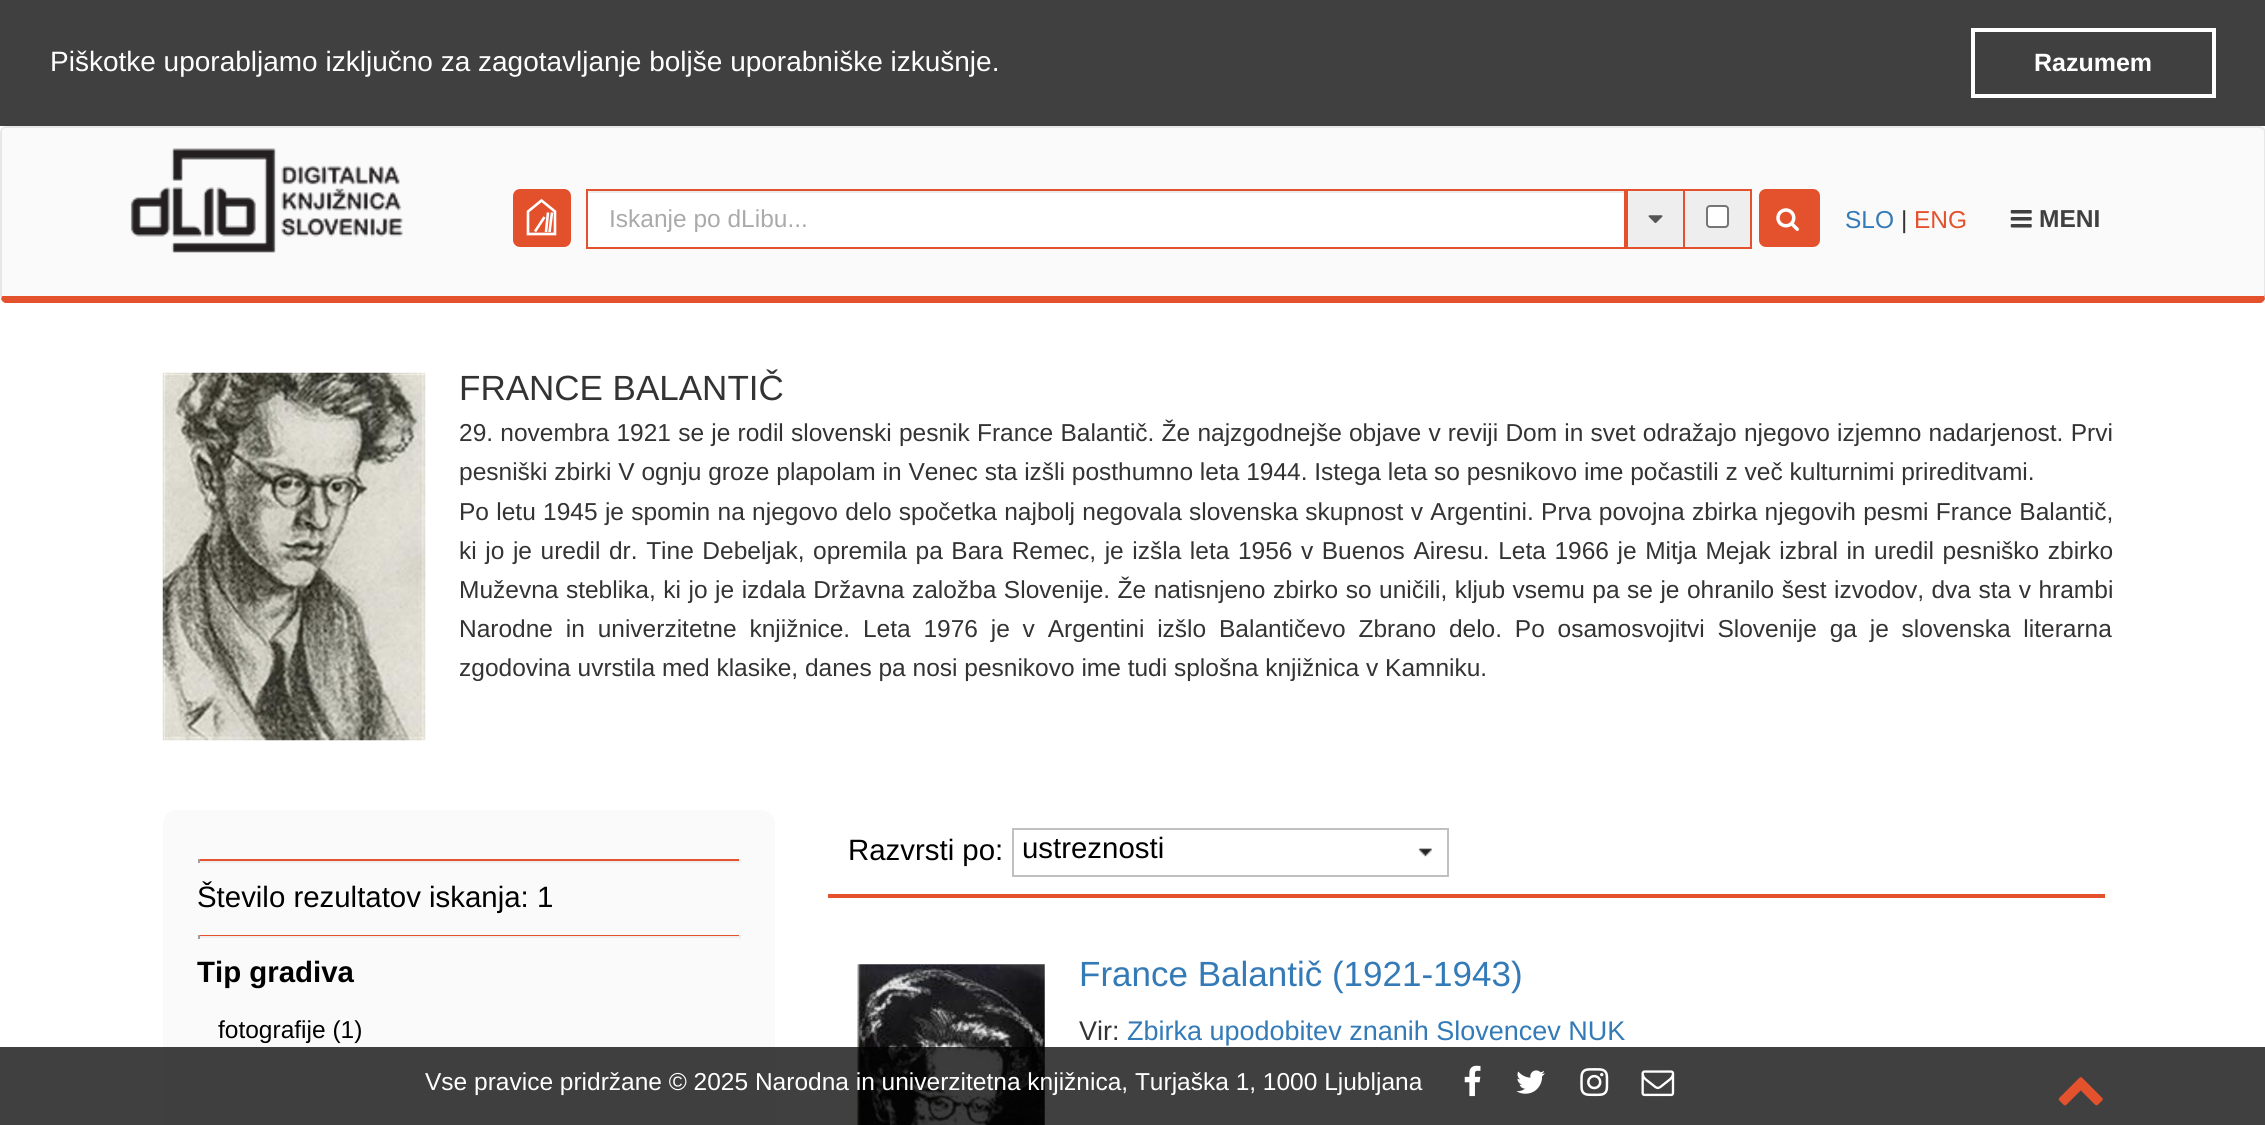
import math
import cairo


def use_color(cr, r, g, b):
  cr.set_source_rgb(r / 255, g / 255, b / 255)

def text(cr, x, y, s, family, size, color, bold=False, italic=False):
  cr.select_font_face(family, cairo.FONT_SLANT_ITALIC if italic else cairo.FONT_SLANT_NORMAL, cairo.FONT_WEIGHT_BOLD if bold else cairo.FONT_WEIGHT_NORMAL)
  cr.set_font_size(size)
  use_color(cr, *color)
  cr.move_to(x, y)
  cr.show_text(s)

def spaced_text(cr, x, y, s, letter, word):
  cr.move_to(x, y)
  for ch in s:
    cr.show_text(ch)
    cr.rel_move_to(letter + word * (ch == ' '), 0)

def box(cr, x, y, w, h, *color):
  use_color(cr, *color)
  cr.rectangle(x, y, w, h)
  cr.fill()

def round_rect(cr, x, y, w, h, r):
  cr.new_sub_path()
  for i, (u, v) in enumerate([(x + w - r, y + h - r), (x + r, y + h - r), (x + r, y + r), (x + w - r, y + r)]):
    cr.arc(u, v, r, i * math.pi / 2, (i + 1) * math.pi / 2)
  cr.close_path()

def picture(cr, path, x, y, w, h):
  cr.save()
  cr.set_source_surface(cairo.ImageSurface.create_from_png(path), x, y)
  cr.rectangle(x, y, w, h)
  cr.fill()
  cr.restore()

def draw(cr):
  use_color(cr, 255, 255, 255)
  cr.paint()
  box(cr, 0, 0, 2265, 126, 64, 64, 64)
  cr.rectangle(1973, 30, 241, 66)
  use_color(cr, 255, 255, 255)
  cr.set_line_width(4)
  cr.stroke()
  use_color(cr, 250, 250, 250)
  cr.new_path()
  cr.move_to(7, 128)
  cr.line_to(2259, 128)
  cr.curve_to(2262, 128, 2264, 130, 2264, 133)
  cr.line_to(2264, 296)
  cr.line_to(2, 296)
  cr.line_to(2, 133)
  cr.curve_to(2, 130, 4, 128, 7, 128)
  cr.close_path()
  cr.fill()
  use_color(cr, 231, 231, 231)
  cr.new_path()
  cr.move_to(7, 126)
  cr.curve_to(5, 126, 3, 127, 2, 128)
  cr.line_to(3, 129)
  cr.curve_to(4, 128, 6, 128, 7, 128)
  cr.line_to(2259, 128)
  cr.curve_to(2261, 128, 2262, 129, 2263, 130)
  cr.line_to(2264, 128)
  cr.curve_to(2263, 127, 2261, 126, 2259, 126)
  cr.close_path()
  cr.fill()
  cr.new_path()
  cr.move_to(2264, 128)
  cr.curve_to(2265, 129, 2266, 131, 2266, 133)
  cr.line_to(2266, 296)
  cr.line_to(2265, 299)
  cr.line_to(2264, 294)
  cr.line_to(2264, 133)
  cr.curve_to(2264, 132, 2264, 130, 2263, 130)
  cr.close_path()
  cr.fill()
  use_color(cr, 227, 81, 45)
  cr.new_path()
  cr.move_to(5, 303)
  cr.curve_to(3, 302, 2, 301, 1, 299)
  cr.line_to(2, 295)
  cr.line_to(2, 296)
  cr.line_to(2264, 296)
  cr.line_to(2264, 294)
  cr.line_to(2265, 299)
  cr.curve_to(2264, 301, 2263, 302, 2261, 303)
  cr.close_path()
  cr.fill()
  use_color(cr, 231, 231, 231)
  cr.new_path()
  cr.move_to(0, 133)
  cr.line_to(0, 296)
  cr.line_to(1, 299)
  cr.line_to(2, 295)
  cr.line_to(2, 133)
  cr.curve_to(2, 132, 2, 130, 3, 129)
  cr.line_to(2, 128)
  cr.curve_to(1, 129, 0, 131, 0, 133)
  cr.close_path()
  cr.fill()
  picture(cr, "img_01.png", 130, 148, 273, 105)
  use_color(cr, 227, 81, 44)
  round_rect(cr, 513, 189, 58, 58, 7)
  cr.fill()
  cr.new_path()
  cr.move_to(555, 234)
  cr.line_to(528, 234)
  cr.line_to(528, 211.5)
  cr.line_to(541.5, 200.5)
  cr.line_to(555, 211.5)
  cr.close_path()
  cr.move_to(535, 231.5)
  cr.line_to(544.5, 217)
  cr.move_to(546, 232)
  cr.line_to(548, 212.5)
  cr.move_to(549.5, 232)
  cr.line_to(552, 212.5)
  use_color(cr, 255, 255, 255)
  cr.set_line_width(2.6)
  cr.stroke()
  box(cr, 588, 193, 1036, 54, 255, 255, 255)
  box(cr, 588, 191, 1036, 2, 236, 236, 236)
  cr.rectangle(587, 190, 1038, 58)
  use_color(cr, 227, 81, 45)
  cr.set_line_width(2)
  cr.stroke()
  use_color(cr, 238, 238, 238)
  cr.rectangle(1627, 190, 57, 58)
  cr.fill_preserve()
  use_color(cr, 227, 81, 45)
  cr.stroke()
  picture(cr, "img_02.png", 1648, 215, 15, 9)
  box(cr, 1685, 191, 65, 56, 238, 238, 238)
  box(cr, 1685, 189, 67, 2, 227, 81, 45)
  box(cr, 1750, 189, 2, 60, 227, 81, 45)
  box(cr, 1685, 247, 67, 2, 227, 81, 45)
  use_color(cr, 255, 255, 255)
  round_rect(cr, 1707, 206, 21, 21, 3)
  cr.fill_preserve()
  use_color(cr, 118, 118, 118)
  cr.stroke()
  use_color(cr, 227, 81, 45)
  round_rect(cr, 1759, 189, 61, 58, 7)
  cr.fill()
  picture(cr, "img_03.png", 1776, 208, 23, 23)
  picture(cr, "img_04.png", 2010, 210, 22, 18)
  picture(cr, "img_05.png", 162, 372, 264, 369)
  use_color(cr, 250, 250, 250)
  round_rect(cr, 163, 810, 612, 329, 14)
  cr.fill()
  box(cr, 198, 859, 542, 2, 227, 81, 45)
  box(cr, 739, 859, 2, 4, 238, 238, 238)
  box(cr, 198, 861, 542, 2, 238, 238, 238)
  box(cr, 198, 859, 2, 4, 159, 159, 159)
  box(cr, 198, 935, 542, 1, 227, 81, 45)
  box(cr, 739, 935, 2, 4, 238, 238, 238)
  box(cr, 198, 936, 542, 2, 238, 238, 238)
  box(cr, 198, 935, 2, 4, 159, 159, 159)
  box(cr, 828, 894, 1277, 4, 227, 81, 45)
  cr.rectangle(1013, 829, 435, 47)
  use_color(cr, 192, 192, 192)
  cr.stroke()
  picture(cr, "img_06.png", 1418, 848, 14, 9)
  picture(cr, "img_07.png", 857, 964, 188, 161)
  cr.set_source_rgba(0, 0, 0, 0.75)
  cr.rectangle(0, 1047, 2265, 78)
  cr.fill()
  picture(cr, "img_08.png", 1464, 1065, 17, 32)
  picture(cr, "img_09.png", 1516, 1070, 29, 24)
  picture(cr, "img_10.png", 1580, 1068, 29, 29)
  picture(cr, "img_11.png", 1641, 1070, 34, 27)
  picture(cr, "img_12.png", 2058, 1077, 45, 29)
  text(cr, 50, 71, "Piškotke uporabljamo izključno za zagotavljanje boljše uporabniške izkušnje.", "Liberation Sans", 28, (255, 255, 255))
  text(cr, 2034, 71, "Razumem", "Liberation Sans", 25, (255, 255, 255), bold=True)
  text(cr, 609, 227, "Iskanje po dLibu...", "Liberation Sans", 24.5, (170, 170, 170))
  text(cr, 1845, 228, "SLO", "Liberation Sans", 24.5, (51, 122, 183))
  text(cr, 1901, 228, "|", "Liberation Sans", 24.5, (51, 51, 51))
  text(cr, 1914, 228, "ENG", "Liberation Sans", 24.5, (227, 81, 45))
  text(cr, 2039, 227, "MENI", "Liberation Sans", 24.5, (64, 64, 64), bold=True)
  text(cr, 459, 400, "FRANCE BALANTIČ", "Liberation Sans", 35, (51, 51, 51))
  cr.set_font_size(24.5)
  spaced_text(cr, 459, 441, "29. novembra 1921 se je rodil slovenski pesnik France Balantič. Že najzgodnejše objave v reviji Dom in svet odražajo njegovo izjemno nadarjenost. Prvi", 0, 0.4)
  text(cr, 459, 480, "pesniški zbirki V ognju groze plapolam in Venec sta izšli posthumno leta 1944. Istega leta so pesnikovo ime počastili z več kulturnimi prireditvami.", "Liberation Sans", 24.5, (51, 51, 51))
  spaced_text(cr, 459, 520, "Po letu 1945 je spomin na njegovo delo spočetka najbolj negovala slovenska skupnost v Argentini. Prva povojna zbirka njegovih pesmi France Balantič,", 0, 0.5)
  spaced_text(cr, 459, 559, "ki jo je uredil dr. Tine Debeljak, opremila pa Bara Remec, je izšla leta 1956 v Buenos Airesu. Leta 1966 je Mitja Mejak izbral in uredil pesniško zbirko", 0, 1.75)
  spaced_text(cr, 459, 598, "Muževna steblika, ki jo je izdala Državna založba Slovenije. Že natisnjeno zbirko so uničili, kljub vsemu pa se je ohranilo šest izvodov, dva sta v hrambi", 0, 0.7)
  spaced_text(cr, 459, 637, "Narodne in univerzitetne knjižnice. Leta 1976 je v Argentini izšlo Balantičevo Zbrano delo. Po osamosvojitvi Slovenije ga je slovenska literarna", 0, 6)
  text(cr, 459, 676, "zgodovina uvrstila med klasike, danes pa nosi pesnikovo ime tudi splošna knjižnica v Kamniku.", "Liberation Sans", 24.5, (51, 51, 51))
  text(cr, 197, 907, "Število rezultatov iskanja: 1", "Liberation Sans", 29.4, (0, 0, 0))
  text(cr, 197, 982, "Tip gradiva", "Liberation Sans", 29.4, (0, 0, 0), bold=True)
  text(cr, 218, 1038, "fotografije (1)", "Liberation Sans", 24.5, (0, 0, 0))
  text(cr, 848, 860, "Razvrsti po:", "Liberation Sans", 29.4, (0, 0, 0))
  text(cr, 1022, 858, "ustreznosti", "Liberation Sans", 29.4, (0, 0, 0))
  text(cr, 1079, 986, "France Balantič (1921-1943)", "Liberation Sans", 35, (51, 122, 183))
  text(cr, 1079, 1040, "Vir:", "Liberation Sans", 27, (51, 51, 51))
  text(cr, 1127, 1040, "Zbirka upodobitev znanih Slovencev NUK", "Liberation Sans", 27, (51, 122, 183))
  text(cr, 425, 1090, "Vse pravice pridržane © 2025 Narodna in univerzitetna knjižnica, Turjaška 1, 1000 Ljubljana", "Liberation Sans", 24.5, (255, 255, 255))


surface = cairo.ImageSurface(cairo.FORMAT_RGB24, 2265, 1125)
cr = cairo.Context(surface)
options = cairo.FontOptions()
options.set_hint_metrics(cairo.HINT_METRICS_OFF)
options.set_hint_style(cairo.HINT_STYLE_NONE)
cr.set_font_options(options)
cr.set_miter_limit(4)
draw(cr)
surface.write_to_png("out.png")
